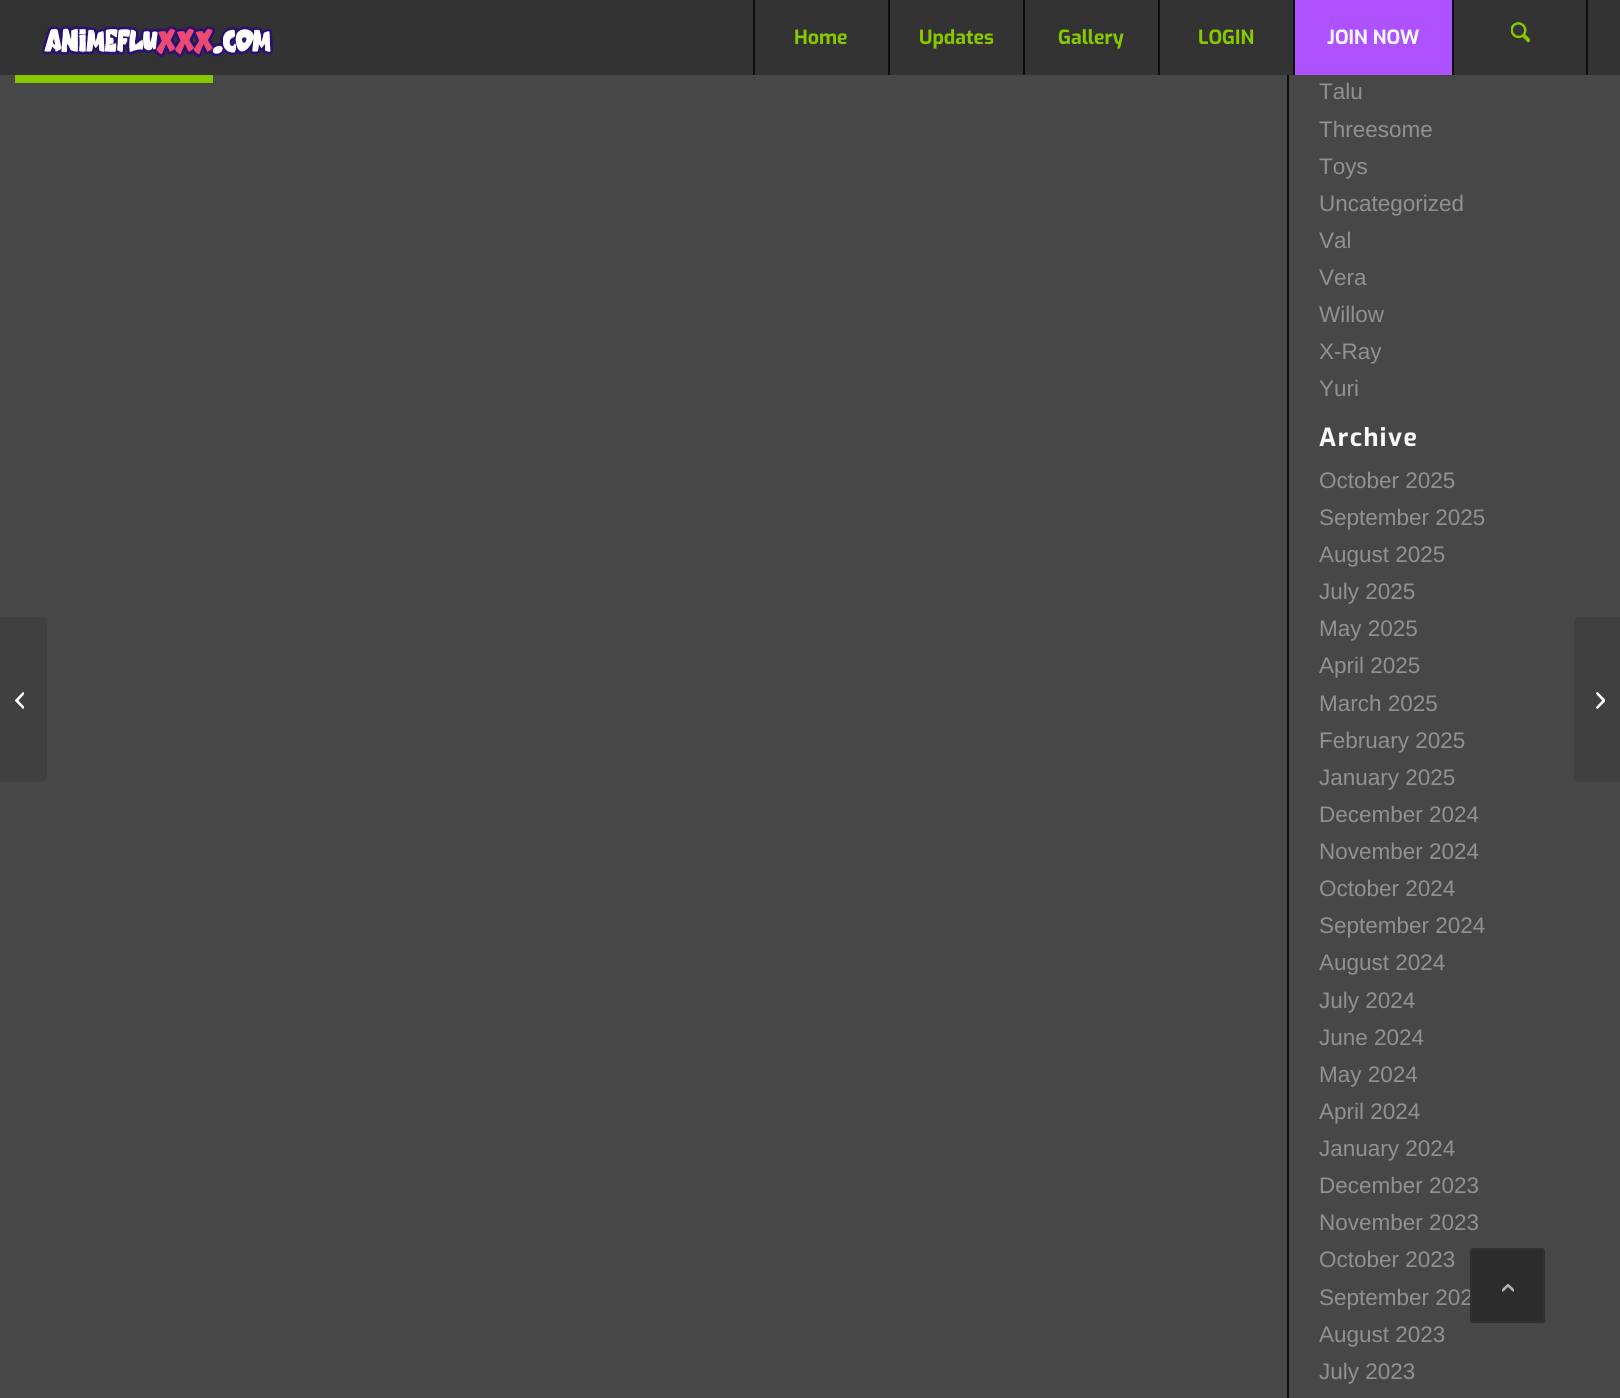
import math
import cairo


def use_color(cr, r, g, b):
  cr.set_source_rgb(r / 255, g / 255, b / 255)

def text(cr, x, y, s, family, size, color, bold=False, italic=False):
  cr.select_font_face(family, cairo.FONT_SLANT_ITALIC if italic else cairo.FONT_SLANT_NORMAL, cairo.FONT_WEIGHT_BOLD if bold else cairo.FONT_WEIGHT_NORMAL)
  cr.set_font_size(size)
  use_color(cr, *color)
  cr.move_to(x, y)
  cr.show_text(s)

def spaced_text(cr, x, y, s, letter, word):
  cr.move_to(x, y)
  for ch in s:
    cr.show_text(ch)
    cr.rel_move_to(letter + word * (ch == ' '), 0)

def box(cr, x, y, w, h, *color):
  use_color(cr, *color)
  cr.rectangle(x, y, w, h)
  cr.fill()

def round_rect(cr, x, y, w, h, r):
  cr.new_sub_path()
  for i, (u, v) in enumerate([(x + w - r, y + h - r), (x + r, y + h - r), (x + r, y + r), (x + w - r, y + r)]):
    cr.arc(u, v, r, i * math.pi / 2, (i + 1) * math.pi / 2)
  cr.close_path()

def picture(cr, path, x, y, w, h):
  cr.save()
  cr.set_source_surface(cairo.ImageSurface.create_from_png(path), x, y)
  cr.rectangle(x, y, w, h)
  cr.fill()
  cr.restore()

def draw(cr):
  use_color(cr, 71, 71, 71)
  cr.paint()
  box(cr, 0, 0, 1620, 75, 51, 51, 51)
  picture(cr, "img_01.png", 42, 26, 231, 31)
  box(cr, 753, 0, 2, 75, 13, 13, 13)
  box(cr, 888, 0, 2, 75, 13, 13, 13)
  box(cr, 1023, 0, 2, 75, 13, 13, 13)
  box(cr, 1158, 0, 2, 75, 13, 13, 13)
  box(cr, 1295, 0, 157, 75, 174, 82, 255)
  box(cr, 1293, 0, 2, 75, 13, 13, 13)
  box(cr, 1586, 0, 2, 75, 13, 13, 13)
  box(cr, 1452, 0, 2, 75, 13, 13, 13)
  picture(cr, "img_02.png", 1511, 22, 19, 21)
  use_color(cr, 64, 64, 64)
  cr.new_path()
  cr.move_to(0, 617)
  cr.line_to(41, 617)
  cr.curve_to(44.5, 617, 47, 619.5, 47, 623)
  cr.line_to(47, 776)
  cr.curve_to(47, 779.5, 44.5, 782, 41, 782)
  cr.line_to(0, 782)
  cr.close_path()
  cr.fill()
  picture(cr, "img_03.png", 15, 692, 9, 17)
  box(cr, 15, 75, 198, 8, 134, 201, 0)
  box(cr, 1287, 75, 2, 1323, 13, 13, 13)
  use_color(cr, 64, 64, 64)
  cr.new_path()
  cr.move_to(1580, 617)
  cr.line_to(1620, 617)
  cr.line_to(1620, 782)
  cr.line_to(1580, 782)
  cr.curve_to(1576.5, 782, 1574, 779.5, 1574, 776)
  cr.line_to(1574, 623)
  cr.curve_to(1574, 619.5, 1576.5, 617, 1580, 617)
  cr.close_path()
  cr.fill()
  picture(cr, "img_04.png", 1596, 692, 9, 17)
  text(cr, 794, 44, "Home", "Exo", 19.5, (134, 201, 0), bold=True)
  text(cr, 919, 44, "Updates", "Exo", 19.5, (134, 201, 0), bold=True)
  text(cr, 1058, 44, "Gallery", "Exo", 19.5, (134, 201, 0), bold=True)
  text(cr, 1198, 44, "LOGIN", "Exo", 19.5, (134, 201, 0), bold=True)
  text(cr, 1327, 44, "JOIN NOW", "Exo", 19.5, (250, 250, 250), bold=True)
  text(cr, 1319, 99, "Talu", "Liberation Sans", 22.5, (145, 145, 145))
  text(cr, 1319, 137, "Threesome", "Liberation Sans", 22.5, (145, 145, 145))
  text(cr, 1319, 174, "Toys", "Liberation Sans", 22.5, (145, 145, 145))
  text(cr, 1319, 211, "Uncategorized", "Liberation Sans", 22.5, (145, 145, 145))
  text(cr, 1319, 248, "Val", "Liberation Sans", 22.5, (145, 145, 145))
  text(cr, 1319, 285, "Vera", "Liberation Sans", 22.5, (145, 145, 145))
  text(cr, 1319, 322, "Willow", "Liberation Sans", 22.5, (145, 145, 145))
  text(cr, 1319, 359, "X-Ray", "Liberation Sans", 22.5, (145, 145, 145))
  text(cr, 1319, 396, "Yuri", "Liberation Sans", 22.5, (145, 145, 145))
  cr.select_font_face("Exo", cairo.FONT_SLANT_NORMAL, cairo.FONT_WEIGHT_BOLD)
  cr.set_font_size(25)
  use_color(cr, 250, 250, 250)
  spaced_text(cr, 1319, 446, "Archive", 1.5, 0)
  text(cr, 1319, 488, "October 2025", "Liberation Sans", 22.5, (145, 145, 145))
  text(cr, 1319, 525, "September 2025", "Liberation Sans", 22.5, (145, 145, 145))
  text(cr, 1319, 562, "August 2025", "Liberation Sans", 22.5, (145, 145, 145))
  text(cr, 1319, 599, "July 2025", "Liberation Sans", 22.5, (145, 145, 145))
  text(cr, 1319, 636, "May 2025", "Liberation Sans", 22.5, (145, 145, 145))
  text(cr, 1319, 673, "April 2025", "Liberation Sans", 22.5, (145, 145, 145))
  text(cr, 1319, 711, "March 2025", "Liberation Sans", 22.5, (145, 145, 145))
  text(cr, 1319, 748, "February 2025", "Liberation Sans", 22.5, (145, 145, 145))
  text(cr, 1319, 785, "January 2025", "Liberation Sans", 22.5, (145, 145, 145))
  text(cr, 1319, 822, "December 2024", "Liberation Sans", 22.5, (145, 145, 145))
  text(cr, 1319, 859, "November 2024", "Liberation Sans", 22.5, (145, 145, 145))
  text(cr, 1319, 896, "October 2024", "Liberation Sans", 22.5, (145, 145, 145))
  text(cr, 1319, 933, "September 2024", "Liberation Sans", 22.5, (145, 145, 145))
  text(cr, 1319, 970, "August 2024", "Liberation Sans", 22.5, (145, 145, 145))
  text(cr, 1319, 1008, "July 2024", "Liberation Sans", 22.5, (145, 145, 145))
  text(cr, 1319, 1045, "June 2024", "Liberation Sans", 22.5, (145, 145, 145))
  text(cr, 1319, 1082, "May 2024", "Liberation Sans", 22.5, (145, 145, 145))
  text(cr, 1319, 1119, "April 2024", "Liberation Sans", 22.5, (145, 145, 145))
  text(cr, 1319, 1156, "January 2024", "Liberation Sans", 22.5, (145, 145, 145))
  text(cr, 1319, 1193, "December 2023", "Liberation Sans", 22.5, (145, 145, 145))
  text(cr, 1319, 1230, "November 2023", "Liberation Sans", 22.5, (145, 145, 145))
  text(cr, 1319, 1267, "October 2023", "Liberation Sans", 22.5, (145, 145, 145))
  text(cr, 1319, 1305, "September 202", "Liberation Sans", 22.5, (145, 145, 145))
  text(cr, 1319, 1342, "August 2023", "Liberation Sans", 22.5, (145, 145, 145))
  text(cr, 1319, 1379, "July 2023", "Liberation Sans", 22.5, (145, 145, 145))
  cr.set_source_rgba(0.133, 0.133, 0.133, 0.7)
  round_rect(cr, 1470, 1248, 75, 75, 3)
  cr.fill()
  round_rect(cr, 1471, 1249, 73, 73, 2)
  cr.set_source_rgba(0.2, 0.2, 0.2, 0.7)
  cr.stroke()
  picture(cr, "img_05.png", 1502, 1284, 12, 8)


surface = cairo.ImageSurface(cairo.FORMAT_RGB24, 1620, 1398)
cr = cairo.Context(surface)
options = cairo.FontOptions()
options.set_hint_metrics(cairo.HINT_METRICS_OFF)
options.set_hint_style(cairo.HINT_STYLE_NONE)
cr.set_font_options(options)
cr.set_miter_limit(4)
draw(cr)
surface.write_to_png("out.png")
